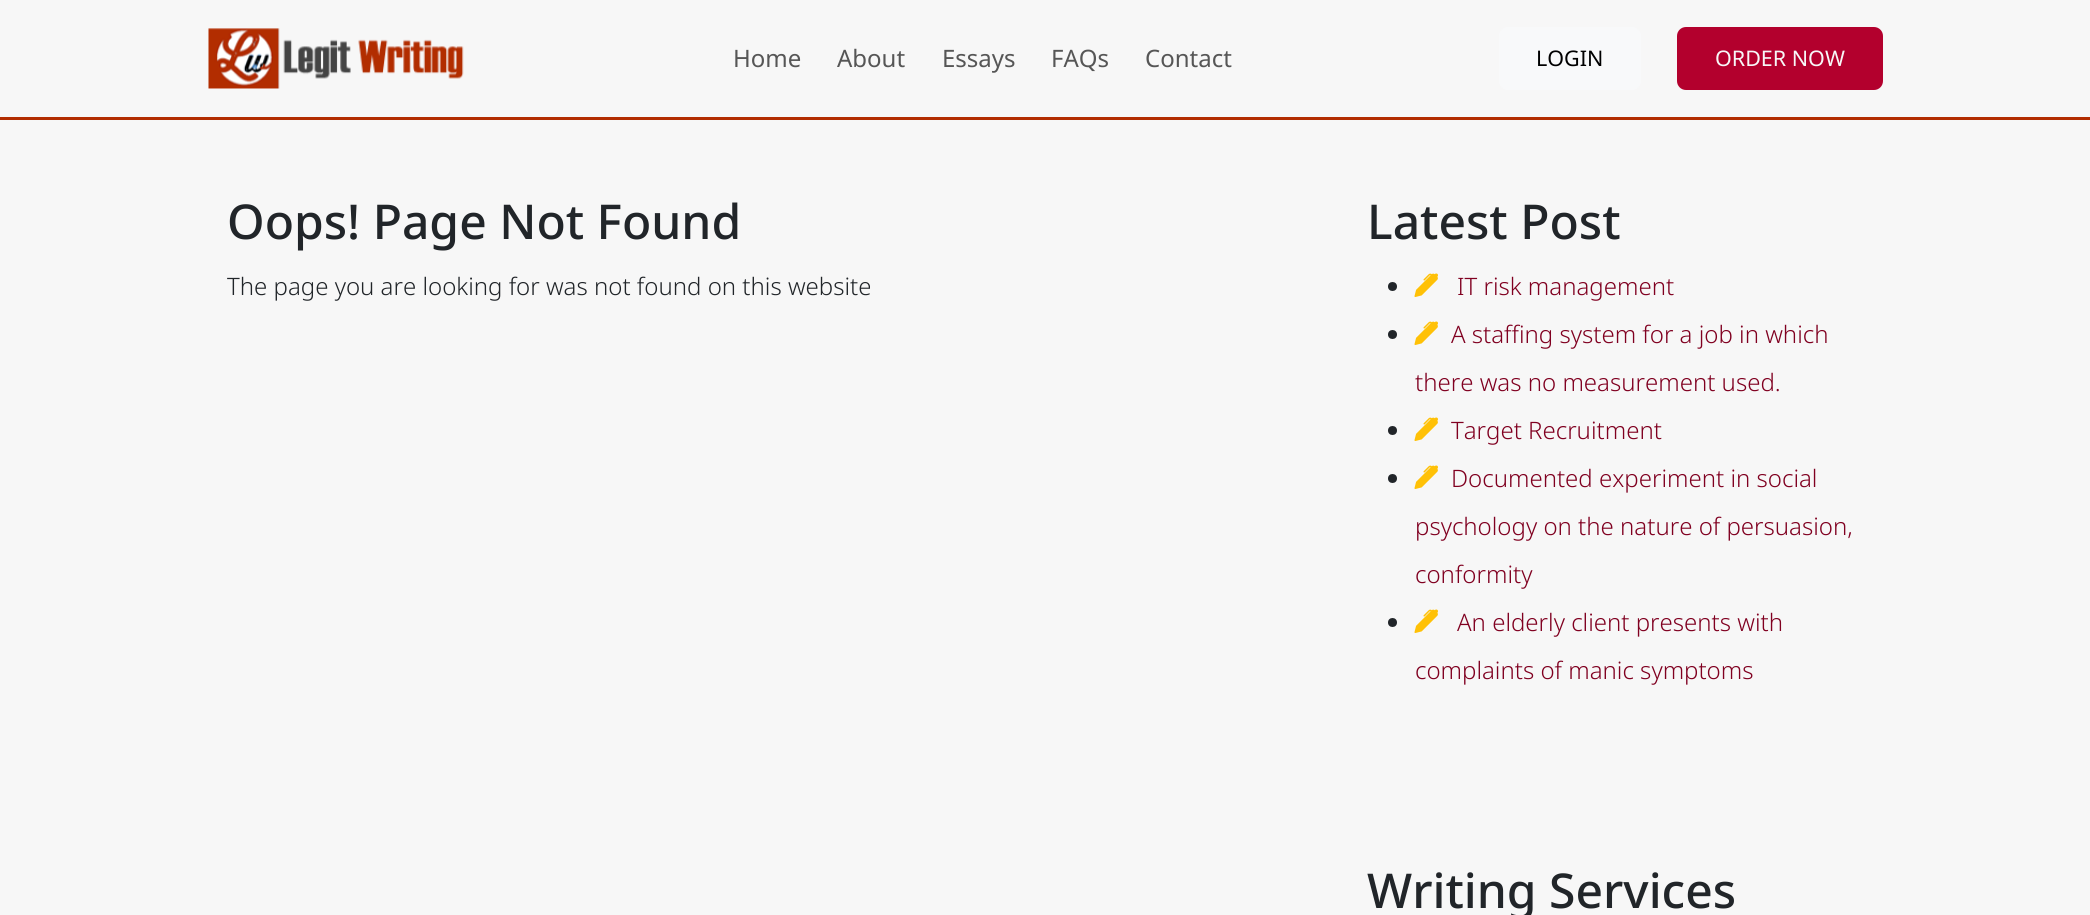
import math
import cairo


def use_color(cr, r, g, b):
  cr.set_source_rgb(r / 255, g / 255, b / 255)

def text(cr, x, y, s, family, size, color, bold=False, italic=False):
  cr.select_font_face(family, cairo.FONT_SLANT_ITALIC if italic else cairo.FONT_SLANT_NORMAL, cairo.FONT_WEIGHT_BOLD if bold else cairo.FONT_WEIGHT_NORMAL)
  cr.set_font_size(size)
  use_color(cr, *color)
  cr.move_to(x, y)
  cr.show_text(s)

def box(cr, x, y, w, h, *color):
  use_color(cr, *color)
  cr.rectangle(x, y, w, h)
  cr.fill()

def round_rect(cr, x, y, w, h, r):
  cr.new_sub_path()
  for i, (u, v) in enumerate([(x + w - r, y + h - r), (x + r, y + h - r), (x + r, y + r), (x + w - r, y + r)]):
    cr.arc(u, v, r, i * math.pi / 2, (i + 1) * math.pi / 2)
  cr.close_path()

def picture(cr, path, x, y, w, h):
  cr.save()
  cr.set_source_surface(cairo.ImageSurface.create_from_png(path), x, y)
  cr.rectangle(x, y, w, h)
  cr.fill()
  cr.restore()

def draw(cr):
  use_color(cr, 247, 247, 247)
  cr.paint()
  box(cr, 0, 117, 2090, 3, 178, 45, 1)
  picture(cr, "img_01.png", 208, 28, 256, 61)
  use_color(cr, 248, 249, 250)
  round_rect(cr, 1499, 27, 142, 63, 9)
  cr.fill()
  use_color(cr, 179, 0, 45)
  round_rect(cr, 1677, 27, 206, 63, 9)
  cr.fill()
  use_color(cr, 33, 37, 41)
  cr.arc(1392.5, 286.5, 4.5, 0, 2 * math.pi)
  cr.fill()
  picture(cr, "img_02.png", 1414, 273, 24, 24)
  cr.arc(1392.5, 334.5, 4.5, 0, 2 * math.pi)
  cr.fill()
  picture(cr, "img_02.png", 1414, 321, 24, 24)
  cr.arc(1392.5, 430.5, 4.5, 0, 2 * math.pi)
  cr.fill()
  picture(cr, "img_02.png", 1414, 417, 24, 24)
  cr.arc(1392.5, 478.5, 4.5, 0, 2 * math.pi)
  cr.fill()
  picture(cr, "img_02.png", 1414, 465, 24, 24)
  cr.arc(1392.5, 622.5, 4.5, 0, 2 * math.pi)
  cr.fill()
  picture(cr, "img_02.png", 1414, 609, 24, 24)
  text(cr, 733, 67, "Home", "Noto Sans", 24, (86, 86, 86))
  text(cr, 837, 67, "About", "Noto Sans", 24, (86, 86, 86))
  text(cr, 942, 67, "Essays", "Noto Sans", 24, (86, 86, 86))
  text(cr, 1051, 67, "FAQs", "Noto Sans", 24, (86, 86, 86))
  text(cr, 1145, 67, "Contact", "Noto Sans", 24, (86, 86, 86))
  text(cr, 1536, 66, "LOGIN", "Noto Sans", 21.5, (0, 0, 0))
  text(cr, 1715, 66, "ORDER NOW", "Noto Sans", 21.5, (247, 247, 247))
  text(cr, 227, 239, "Oops! Page Not Found", "Noto Sans Medium", 48, (33, 37, 41))
  text(cr, 227, 295, "The page you are looking for was not found on this website", "Noto Sans Light", 24, (33, 37, 41))
  text(cr, 1367, 239, "Latest Post", "Noto Sans Medium", 48, (33, 37, 41))
  text(cr, 1457, 295, "IT risk management", "Noto Sans Light", 24, (128, 0, 32))
  text(cr, 1451, 343, "A staffing system for a job in which", "Noto Sans Light", 24, (128, 0, 32))
  text(cr, 1415, 391, "there was no measurement used.", "Noto Sans Light", 24, (128, 0, 32))
  text(cr, 1451, 439, "Target Recruitment", "Noto Sans Light", 24, (128, 0, 32))
  text(cr, 1451, 487, "Documented experiment in social", "Noto Sans Light", 24, (128, 0, 32))
  text(cr, 1415, 535, "psychology on the nature of persuasion,", "Noto Sans Light", 24, (128, 0, 32))
  text(cr, 1415, 583, "conformity", "Noto Sans Light", 24, (128, 0, 32))
  text(cr, 1457, 631, "An elderly client presents with", "Noto Sans Light", 24, (128, 0, 32))
  text(cr, 1415, 679, "complaints of manic symptoms", "Noto Sans Light", 24, (128, 0, 32))
  text(cr, 1367, 908, "Writing Services", "Noto Sans Medium", 48, (33, 37, 41))


surface = cairo.ImageSurface(cairo.FORMAT_RGB24, 2090, 915)
cr = cairo.Context(surface)
options = cairo.FontOptions()
options.set_hint_metrics(cairo.HINT_METRICS_OFF)
options.set_hint_style(cairo.HINT_STYLE_NONE)
cr.set_font_options(options)
cr.set_miter_limit(4)
draw(cr)
surface.write_to_png("out.png")
